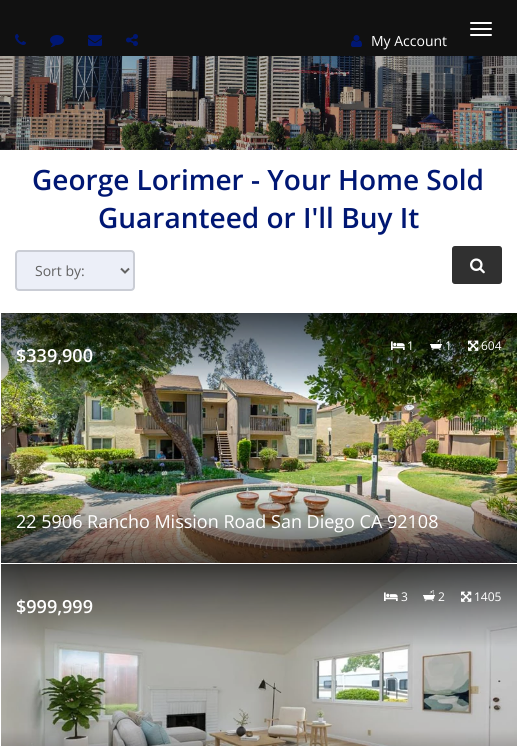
import math
import cairo


def use_color(cr, r, g, b):
  cr.set_source_rgb(r / 255, g / 255, b / 255)

def text(cr, x, y, s, family, size, color, bold=False, italic=False):
  cr.select_font_face(family, cairo.FONT_SLANT_ITALIC if italic else cairo.FONT_SLANT_NORMAL, cairo.FONT_WEIGHT_BOLD if bold else cairo.FONT_WEIGHT_NORMAL)
  cr.set_font_size(size)
  use_color(cr, *color)
  cr.move_to(x, y)
  cr.show_text(s)

def box(cr, x, y, w, h, *color):
  use_color(cr, *color)
  cr.rectangle(x, y, w, h)
  cr.fill()

def round_rect(cr, x, y, w, h, r):
  cr.new_sub_path()
  for i, (u, v) in enumerate([(x + w - r, y + h - r), (x + r, y + h - r), (x + r, y + r), (x + w - r, y + r)]):
    cr.arc(u, v, r, i * math.pi / 2, (i + 1) * math.pi / 2)
  cr.close_path()

def picture(cr, path, x, y, w, h):
  cr.save()
  cr.set_source_surface(cairo.ImageSurface.create_from_png(path), x, y)
  cr.rectangle(x, y, w, h)
  cr.fill()
  cr.restore()

def draw(cr):
  use_color(cr, 255, 255, 255)
  cr.paint()
  box(cr, 0, 0, 517, 56, 17, 17, 17)
  use_color(cr, 255, 255, 255)
  round_rect(cr, 470, 22, 22, 2, 1)
  cr.fill()
  round_rect(cr, 470, 28, 22, 2, 1)
  cr.fill()
  round_rect(cr, 470, 34, 22, 2, 1)
  cr.fill()
  picture(cr, "img_01.png", 15, 34, 11, 11)
  picture(cr, "img_02.png", 50, 35, 14, 12)
  picture(cr, "img_03.png", 88, 35, 14, 11)
  picture(cr, "img_04.png", 126, 34, 12, 12)
  picture(cr, "img_05.png", 351, 35, 11, 12)
  picture(cr, "img_06.png", 0, 56, 517, 94)
  use_color(cr, 236, 239, 248)
  round_rect(cr, 16, 251, 118, 39, 3)
  cr.fill_preserve()
  use_color(cr, 202, 205, 213)
  cr.stroke()
  cr.new_path()
  cr.move_to(121, 268.5)
  cr.line_to(125, 272.5)
  cr.line_to(129, 268.5)
  use_color(cr, 98, 98, 98)
  cr.stroke()
  use_color(cr, 68, 68, 68)
  round_rect(cr, 452, 246, 50, 38, 3)
  cr.fill()
  cr.set_source_rgba(0, 0, 0, 0.3)
  round_rect(cr, 452, 246, 50, 38, 3)
  cr.fill()
  picture(cr, "img_07.png", 470, 258, 15, 16)
  picture(cr, "img_08.png", 1, 313, 516, 250)
  picture(cr, "img_09.png", 391, 341, 14, 9)
  picture(cr, "img_10.png", 430, 339, 12, 12)
  picture(cr, "img_11.png", 468, 340, 11, 11)
  picture(cr, "img_12.png", 1, 564, 516, 182)
  picture(cr, "img_13.png", 384, 592, 14, 9)
  picture(cr, "img_14.png", 423, 590, 12, 12)
  picture(cr, "img_15.png", 461, 591, 11, 11)
  text(cr, 371, 46, "My Account", "Open Sans", 14, (255, 255, 255))
  text(cr, 32, 190, "George Lorimer - Your Home Sold", "Open Sans SemiBold", 28, (0, 23, 115))
  text(cr, 98, 228, "Guaranteed or I'll Buy It", "Open Sans SemiBold", 28, (0, 23, 115))
  text(cr, 35, 276, "Sort by:", "Open Sans", 14, (98, 98, 98))
  text(cr, 407, 350, "1", "Open Sans", 12, (255, 255, 255))
  text(cr, 445, 350, "1", "Open Sans", 12, (255, 255, 255))
  text(cr, 481, 350, "604", "Open Sans", 12, (255, 255, 255))
  text(cr, 16, 362, "$339,900", "Open Sans SemiBold", 18, (255, 255, 255))
  text(cr, 16, 528, "22 5906 Rancho Mission Road San Diego CA 92108", "Open Sans", 18, (255, 255, 255))
  text(cr, 401, 601, "3", "Open Sans", 12, (255, 255, 255))
  text(cr, 438, 601, "2", "Open Sans", 12, (255, 255, 255))
  text(cr, 474, 601, "1405", "Open Sans", 12, (255, 255, 255))
  text(cr, 16, 613, "$999,999", "Open Sans SemiBold", 18, (255, 255, 255))


surface = cairo.ImageSurface(cairo.FORMAT_RGB24, 517, 746)
cr = cairo.Context(surface)
options = cairo.FontOptions()
options.set_hint_metrics(cairo.HINT_METRICS_OFF)
options.set_hint_style(cairo.HINT_STYLE_NONE)
cr.set_font_options(options)
cr.set_miter_limit(4)
draw(cr)
surface.write_to_png("out.png")
